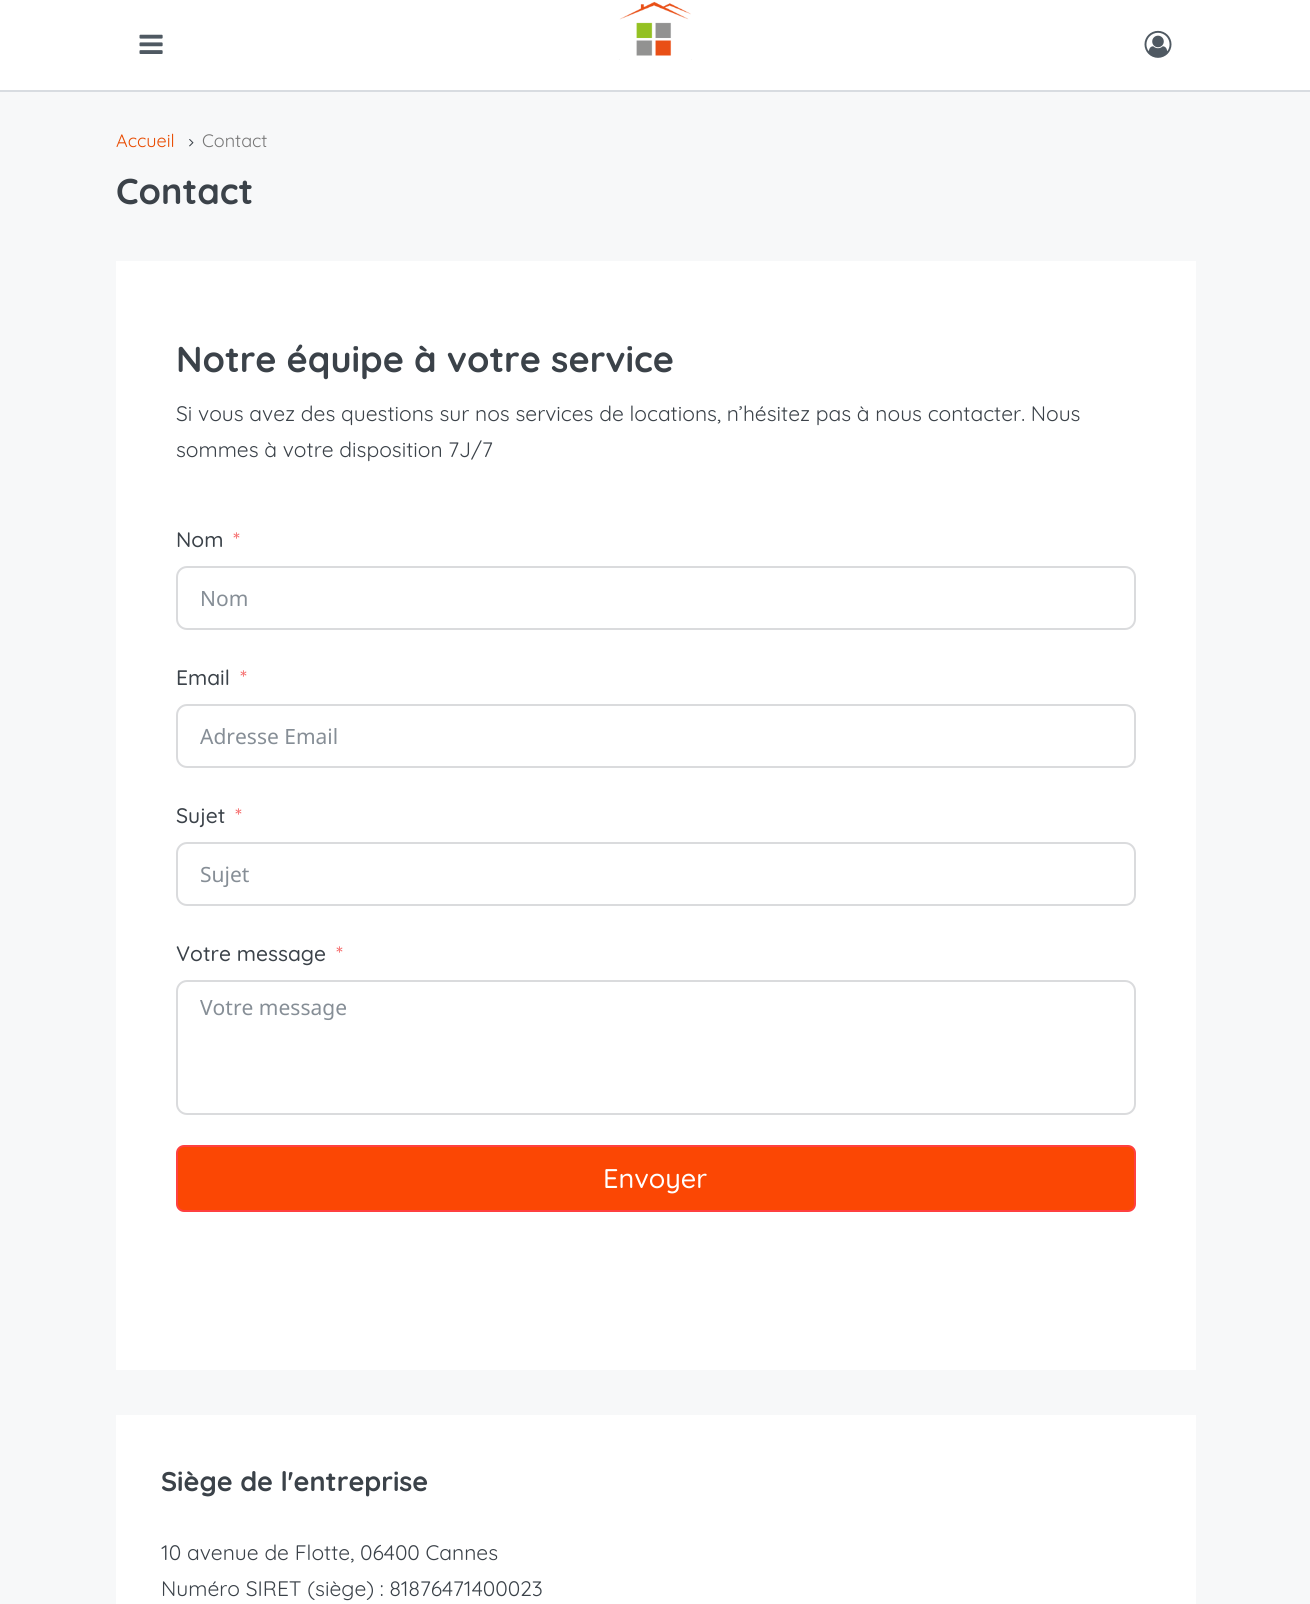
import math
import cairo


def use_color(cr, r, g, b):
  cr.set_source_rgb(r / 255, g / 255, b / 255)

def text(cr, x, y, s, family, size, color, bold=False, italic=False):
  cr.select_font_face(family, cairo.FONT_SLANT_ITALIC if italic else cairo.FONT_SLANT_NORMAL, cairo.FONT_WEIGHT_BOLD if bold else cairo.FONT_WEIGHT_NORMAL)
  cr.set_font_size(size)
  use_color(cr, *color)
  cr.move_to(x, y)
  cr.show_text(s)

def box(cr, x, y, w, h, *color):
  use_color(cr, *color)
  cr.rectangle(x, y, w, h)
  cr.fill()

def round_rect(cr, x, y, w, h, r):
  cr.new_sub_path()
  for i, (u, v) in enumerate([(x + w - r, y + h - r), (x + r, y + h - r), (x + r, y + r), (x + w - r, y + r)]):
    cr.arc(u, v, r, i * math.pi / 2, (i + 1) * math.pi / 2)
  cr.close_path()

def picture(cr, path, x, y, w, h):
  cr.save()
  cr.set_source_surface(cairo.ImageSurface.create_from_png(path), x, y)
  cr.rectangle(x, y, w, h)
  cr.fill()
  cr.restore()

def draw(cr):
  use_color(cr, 247, 248, 249)
  cr.paint()
  box(cr, 0, 0, 1310, 90, 255, 255, 255)
  box(cr, 0, 90, 1310, 2, 216, 220, 225)
  picture(cr, "img_01.png", 139, 34, 24, 20)
  picture(cr, "img_02.png", 619, 1, 73, 59)
  picture(cr, "img_03.png", 1144, 30, 28, 28)
  picture(cr, "img_04.png", 189, 139, 5, 8)
  box(cr, 116, 261, 1080, 1109, 255, 255, 255)
  round_rect(cr, 177, 567, 958, 62, 10)
  use_color(cr, 218, 219, 221)
  cr.stroke()
  round_rect(cr, 177, 705, 958, 62, 10)
  cr.stroke()
  round_rect(cr, 177, 843, 958, 62, 10)
  cr.stroke()
  round_rect(cr, 177, 981, 958, 133, 10)
  cr.stroke()
  use_color(cr, 251, 71, 4)
  round_rect(cr, 177, 1146, 958, 65, 7)
  cr.fill_preserve()
  use_color(cr, 255, 64, 64)
  cr.stroke()
  box(cr, 116, 1415, 1080, 189, 255, 255, 255)
  text(cr, 116, 147, "Accueil", "Quicksand", 18, (232, 75, 1))
  text(cr, 202, 147, "Contact", "Quicksand", 18, (119, 119, 119))
  text(cr, 116, 204, "Contact", "Quicksand", 36, (59, 66, 73), bold=True)
  text(cr, 176, 372, "Notre équipe à votre service", "Quicksand", 36, (59, 66, 73), bold=True)
  text(cr, 176, 421, "Si vous avez des questions sur nos services de locations, n’hésitez pas à nous contacter. Nous", "Quicksand", 21, (59, 66, 73))
  text(cr, 176, 457, "sommes à votre disposition 7J/7", "Quicksand", 21, (59, 66, 73))
  text(cr, 176, 547, "Nom", "Quicksand Medium", 21, (59, 66, 73))
  text(cr, 233, 547, "*", "Quicksand Medium", 21, (245, 108, 108))
  text(cr, 200, 606, "Nom", "Noto Sans", 21, (134, 142, 150))
  text(cr, 176, 685, "Email", "Quicksand Medium", 21, (59, 66, 73))
  text(cr, 240, 685, "*", "Quicksand Medium", 21, (245, 108, 108))
  text(cr, 200, 744, "Adresse Email", "Noto Sans", 21, (134, 142, 150))
  text(cr, 176, 823, "Sujet", "Quicksand Medium", 21, (59, 66, 73))
  text(cr, 235, 823, "*", "Quicksand Medium", 21, (245, 108, 108))
  text(cr, 200, 882, "Sujet", "Noto Sans", 21, (134, 142, 150))
  text(cr, 176, 961, "Votre message", "Quicksand Medium", 21, (59, 66, 73))
  text(cr, 336, 961, "*", "Quicksand Medium", 21, (245, 108, 108))
  text(cr, 200, 1015, "Votre message", "Noto Sans", 21, (134, 142, 150))
  text(cr, 603, 1188, "Envoyer", "Quicksand Medium", 27, (255, 255, 255))
  text(cr, 161, 1491, "Siège de l'entreprise", "Quicksand", 27, (59, 66, 73), bold=True)
  text(cr, 161, 1560, "10 avenue de Flotte, 06400 Cannes", "Quicksand", 21, (59, 66, 73))
  text(cr, 161, 1596, "Numéro SIRET (siège) : 81876471400023", "Quicksand", 21, (59, 66, 73))


surface = cairo.ImageSurface(cairo.FORMAT_RGB24, 1310, 1604)
cr = cairo.Context(surface)
options = cairo.FontOptions()
options.set_hint_metrics(cairo.HINT_METRICS_OFF)
options.set_hint_style(cairo.HINT_STYLE_NONE)
cr.set_font_options(options)
cr.set_miter_limit(4)
draw(cr)
surface.write_to_png("out.png")
